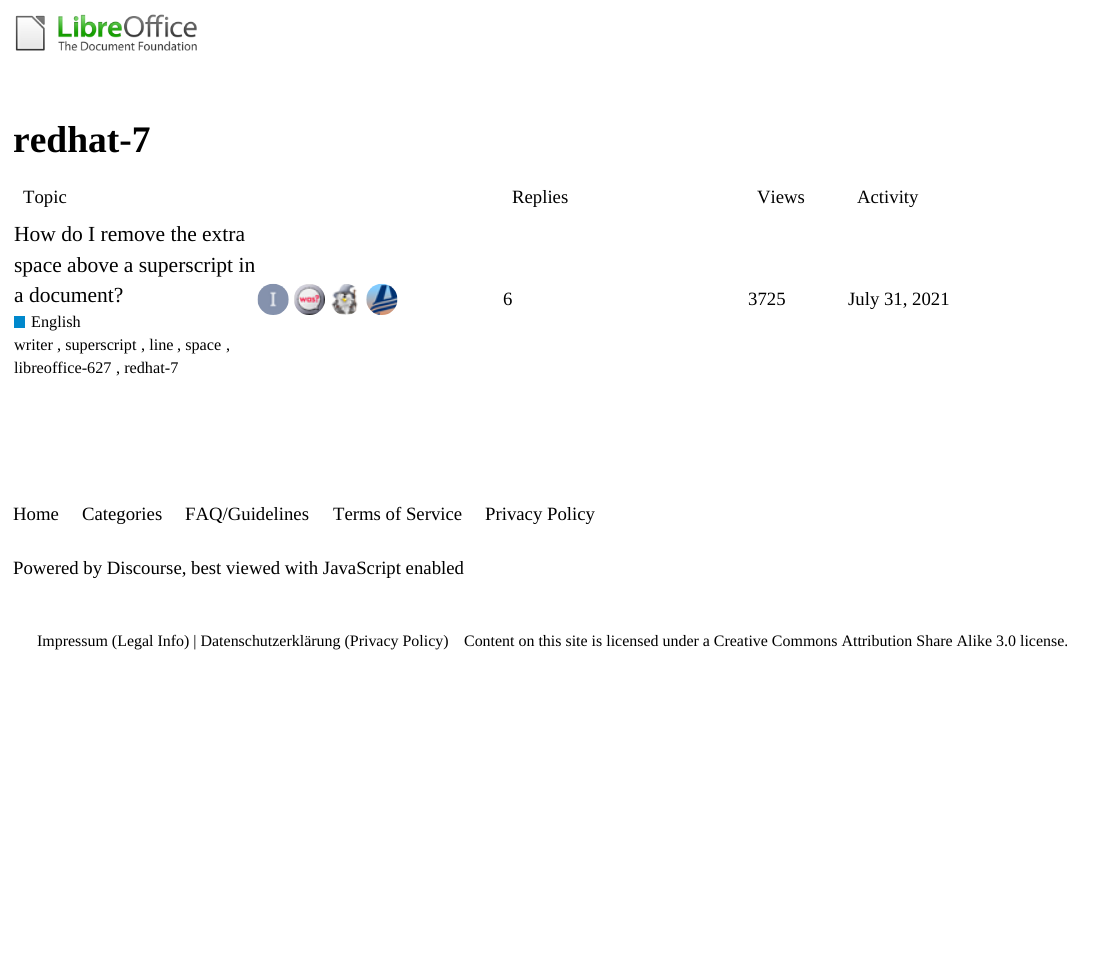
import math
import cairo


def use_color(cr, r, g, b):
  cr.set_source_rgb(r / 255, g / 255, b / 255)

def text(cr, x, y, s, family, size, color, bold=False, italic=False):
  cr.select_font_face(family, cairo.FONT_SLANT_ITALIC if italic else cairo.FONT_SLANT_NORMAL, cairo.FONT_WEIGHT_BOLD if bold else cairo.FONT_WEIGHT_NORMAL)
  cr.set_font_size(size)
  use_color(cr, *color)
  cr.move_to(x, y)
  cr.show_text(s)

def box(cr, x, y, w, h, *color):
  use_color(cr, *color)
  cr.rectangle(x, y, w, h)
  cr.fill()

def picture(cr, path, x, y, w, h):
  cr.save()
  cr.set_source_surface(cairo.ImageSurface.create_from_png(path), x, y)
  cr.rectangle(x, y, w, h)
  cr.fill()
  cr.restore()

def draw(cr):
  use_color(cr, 255, 255, 255)
  cr.paint()
  picture(cr, "img_01.png", 15, 14, 182, 37)
  box(cr, 14, 316, 11, 12, 0, 136, 204)
  picture(cr, "img_02.png", 257, 283, 32, 32)
  picture(cr, "img_03.png", 294, 284, 31, 31)
  picture(cr, "img_04.png", 331, 284, 27, 31)
  picture(cr, "img_05.png", 366, 283, 32, 32)
  text(cr, 13, 152, "redhat-7", "Liberation Serif", 37.5, (0, 0, 0), bold=True)
  text(cr, 23, 203, "Topic", "Liberation Serif", 18.75, (0, 0, 0))
  text(cr, 512, 203, "Replies", "Liberation Serif", 18.75, (0, 0, 0))
  text(cr, 757, 203, "Views", "Liberation Serif", 18.75, (0, 0, 0))
  text(cr, 857, 203, "Activity", "Liberation Serif", 18.75, (0, 0, 0))
  text(cr, 14, 241, "How do I remove the extra", "Liberation Serif", 21.5, (0, 0, 0))
  text(cr, 14, 272, "space above a superscript in", "Liberation Serif", 21.5, (0, 0, 0))
  text(cr, 14, 302, "a document?", "Liberation Serif", 21.5, (0, 0, 0))
  text(cr, 31, 327, "English", "Liberation Serif", 16.25, (0, 0, 0))
  text(cr, 14, 350, "writer", "Liberation Serif", 16.25, (0, 0, 0))
  text(cr, 57, 350, ", superscript", "Liberation Serif", 16.25, (0, 0, 0))
  text(cr, 141, 350, ", line", "Liberation Serif", 16.25, (0, 0, 0))
  text(cr, 177, 350, ", space", "Liberation Serif", 16.25, (0, 0, 0))
  text(cr, 226, 350, ",", "Liberation Serif", 16.25, (0, 0, 0))
  text(cr, 14, 373, "libreoffice-627", "Liberation Serif", 16.25, (0, 0, 0))
  text(cr, 116, 373, ", redhat-7", "Liberation Serif", 16.25, (0, 0, 0))
  text(cr, 503, 305, "6", "Liberation Serif", 18.75, (0, 0, 0))
  text(cr, 748, 305, "3725", "Liberation Serif", 18.75, (0, 0, 0))
  text(cr, 848, 305, "July 31, 2021", "Liberation Serif", 18.75, (0, 0, 0))
  text(cr, 13, 520, "Home", "Liberation Serif", 18.75, (0, 0, 0))
  text(cr, 82, 520, "Categories", "Liberation Serif", 18.75, (0, 0, 0))
  text(cr, 185, 520, "FAQ/Guidelines", "Liberation Serif", 18.75, (0, 0, 0))
  text(cr, 333, 520, "Terms of Service", "Liberation Serif", 18.75, (0, 0, 0))
  text(cr, 485, 520, "Privacy Policy", "Liberation Serif", 18.75, (0, 0, 0))
  text(cr, 13, 574, "Powered by Discourse, best viewed with JavaScript enabled", "Liberation Serif", 18.75, (0, 0, 0))
  text(cr, 37, 646, "Impressum (Legal Info) | Datenschutzerklärung (Privacy Policy)", "Liberation Serif", 15.95, (0, 0, 0))
  text(cr, 464, 646, "Content on this site is licensed under a Creative Commons Attribution Share Alike 3.0 license.", "Liberation Serif", 15.95, (0, 0, 0))


surface = cairo.ImageSurface(cairo.FORMAT_RGB24, 1104, 978)
cr = cairo.Context(surface)
options = cairo.FontOptions()
options.set_hint_metrics(cairo.HINT_METRICS_OFF)
options.set_hint_style(cairo.HINT_STYLE_NONE)
cr.set_font_options(options)
cr.set_miter_limit(4)
draw(cr)
surface.write_to_png("out.png")
